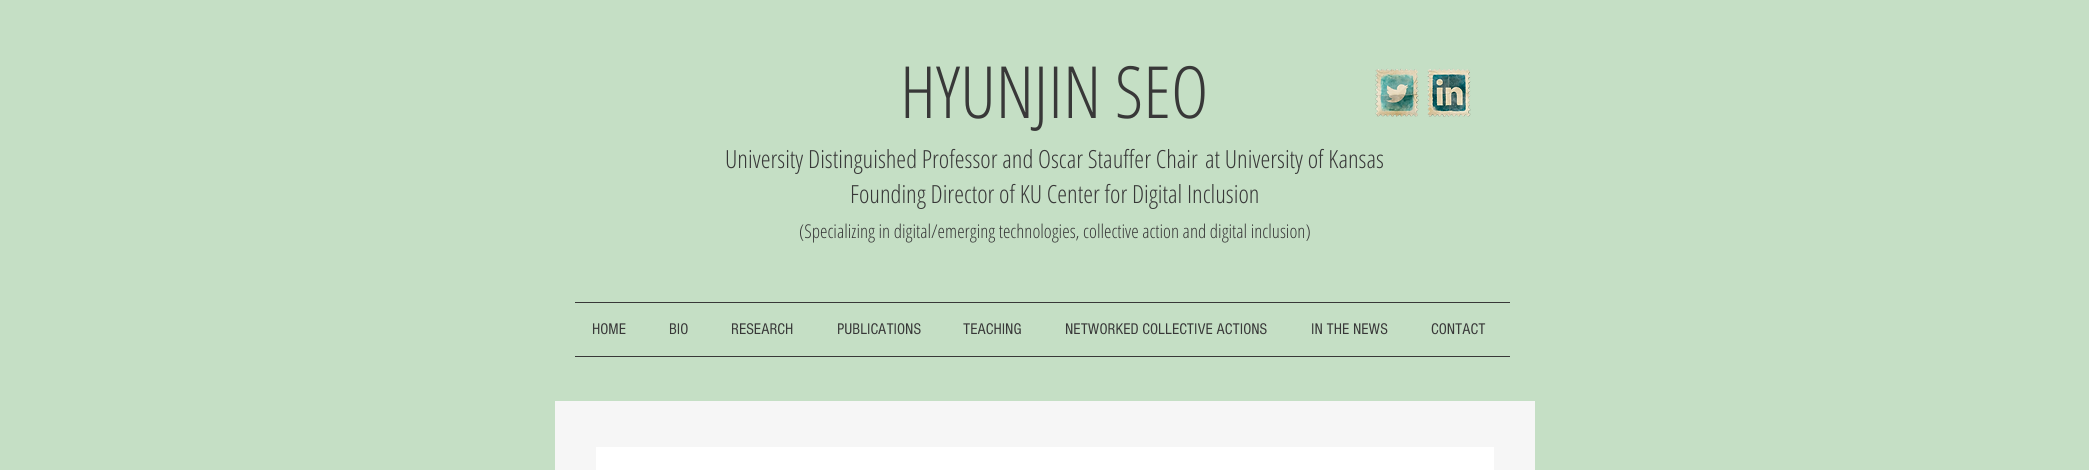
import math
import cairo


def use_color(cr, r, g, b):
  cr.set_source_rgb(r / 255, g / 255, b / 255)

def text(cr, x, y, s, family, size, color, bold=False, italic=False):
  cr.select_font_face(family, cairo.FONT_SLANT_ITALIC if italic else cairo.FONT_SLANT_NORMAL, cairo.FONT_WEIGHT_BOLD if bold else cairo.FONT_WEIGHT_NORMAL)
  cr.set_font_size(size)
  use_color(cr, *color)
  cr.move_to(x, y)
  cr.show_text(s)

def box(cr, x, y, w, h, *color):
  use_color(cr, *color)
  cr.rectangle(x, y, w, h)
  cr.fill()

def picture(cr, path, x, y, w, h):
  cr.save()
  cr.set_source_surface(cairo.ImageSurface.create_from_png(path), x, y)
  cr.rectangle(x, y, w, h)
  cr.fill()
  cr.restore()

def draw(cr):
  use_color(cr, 197, 223, 197)
  cr.paint()
  picture(cr, "img_01.png", 1375, 68, 44, 49)
  picture(cr, "img_02.png", 1427, 68, 44, 49)
  box(cr, 575, 302, 935, 1, 56, 56, 56)
  box(cr, 575, 356, 935, 1, 56, 56, 56)
  box(cr, 555, 401, 980, 69, 246, 246, 246)
  box(cr, 596, 447, 898, 23, 255, 255, 255)
  text(cr, 900, 118, "HYUNJIN SEO", "Open Sans Condensed Light", 72, (56, 56, 56))
  text(cr, 725, 168, "University Distinguished Professor and Oscar Stauffer Chair", "Open Sans Condensed Light", 25, (56, 56, 56))
  text(cr, 1205, 168, "at University of Kansas", "Open Sans Condensed Light", 25, (56, 56, 56))
  text(cr, 850, 203, "Founding Director of KU Center for Digital Inclusion", "Open Sans Condensed Light", 25, (56, 56, 56))
  text(cr, 799, 238, "(Specializing in digital/emerging technologies, collective action and digital inclusion)", "Open Sans Condensed Light", 19, (56, 56, 56))
  text(cr, 592, 334, "HOME", "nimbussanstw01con", 16, (56, 56, 56))
  text(cr, 669, 334, "BIO", "nimbussanstw01con", 16, (56, 56, 56))
  text(cr, 731, 334, "RESEARCH", "nimbussanstw01con", 16, (56, 56, 56))
  text(cr, 837, 334, "PUBLICATIONS", "nimbussanstw01con", 16, (56, 56, 56))
  text(cr, 963, 334, "TEACHING", "nimbussanstw01con", 16, (56, 56, 56))
  text(cr, 1065, 334, "NETWORKED COLLECTIVE ACTIONS", "nimbussanstw01con", 16, (56, 56, 56))
  text(cr, 1311, 334, "IN THE NEWS", "nimbussanstw01con", 16, (56, 56, 56))
  text(cr, 1431, 334, "CONTACT", "nimbussanstw01con", 16, (56, 56, 56))


surface = cairo.ImageSurface(cairo.FORMAT_RGB24, 2089, 470)
cr = cairo.Context(surface)
options = cairo.FontOptions()
options.set_hint_metrics(cairo.HINT_METRICS_OFF)
options.set_hint_style(cairo.HINT_STYLE_NONE)
cr.set_font_options(options)
cr.set_miter_limit(4)
draw(cr)
surface.write_to_png("out.png")
